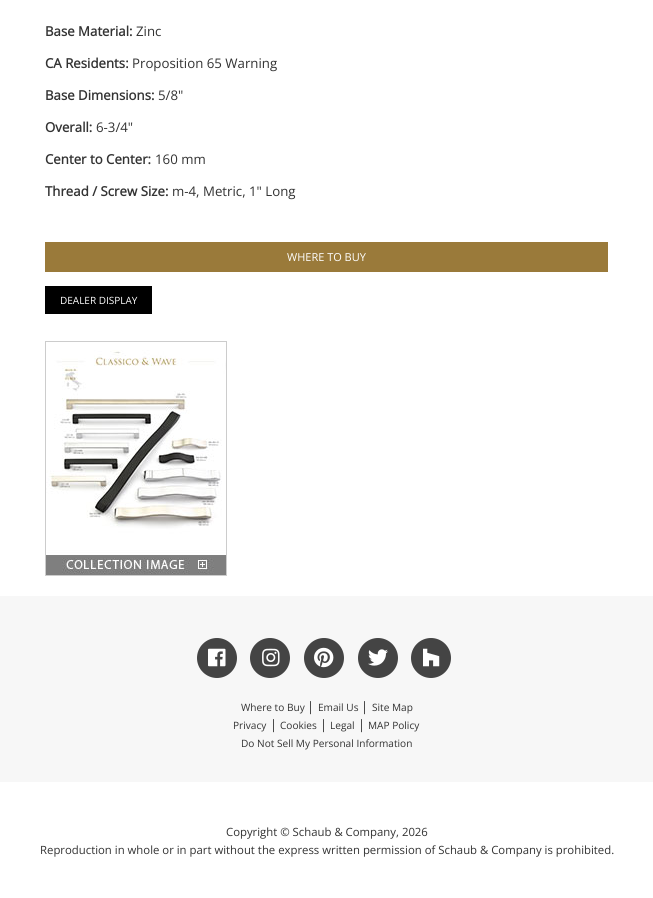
import math
import cairo


def use_color(cr, r, g, b):
  cr.set_source_rgb(r / 255, g / 255, b / 255)

def text(cr, x, y, s, family, size, color, bold=False, italic=False):
  cr.select_font_face(family, cairo.FONT_SLANT_ITALIC if italic else cairo.FONT_SLANT_NORMAL, cairo.FONT_WEIGHT_BOLD if bold else cairo.FONT_WEIGHT_NORMAL)
  cr.set_font_size(size)
  use_color(cr, *color)
  cr.move_to(x, y)
  cr.show_text(s)

def box(cr, x, y, w, h, *color):
  use_color(cr, *color)
  cr.rectangle(x, y, w, h)
  cr.fill()

def picture(cr, path, x, y, w, h):
  cr.save()
  cr.set_source_surface(cairo.ImageSurface.create_from_png(path), x, y)
  cr.rectangle(x, y, w, h)
  cr.fill()
  cr.restore()

def draw(cr):
  use_color(cr, 255, 255, 255)
  cr.paint()
  box(cr, 45, 242, 563, 30, 154, 122, 58)
  box(cr, 45, 286, 107, 28, 0, 0, 0)
  cr.rectangle(45.5, 341.5, 181, 234)
  use_color(cr, 204, 204, 204)
  cr.set_line_width(1)
  cr.stroke()
  picture(cr, "img_01.png", 46, 350, 180, 225)
  box(cr, 0, 596, 653, 186, 247, 247, 247)
  use_color(cr, 68, 68, 68)
  cr.arc(217, 658, 20, 0, 2 * math.pi)
  cr.fill()
  picture(cr, "img_02.png", 208, 648, 18, 19)
  cr.arc(270, 658, 20, 0, 2 * math.pi)
  cr.fill()
  picture(cr, "img_03.png", 262, 648, 18, 19)
  cr.arc(324, 658, 20, 0, 2 * math.pi)
  cr.fill()
  picture(cr, "img_04.png", 314, 647, 20, 21)
  cr.arc(378, 658, 20, 0, 2 * math.pi)
  cr.fill()
  picture(cr, "img_05.png", 368, 649, 20, 17)
  cr.arc(431, 658, 20, 0, 2 * math.pi)
  cr.fill()
  picture(cr, "img_06.png", 423, 648, 17, 19)
  text(cr, 45, 36, "Base Material:", "Open Sans", 13.25, (51, 51, 51), bold=True)
  text(cr, 136, 36, "Zinc", "Open Sans", 13.25, (51, 51, 51))
  text(cr, 45, 68, "CA Residents:", "Open Sans", 13.25, (51, 51, 51), bold=True)
  text(cr, 132, 68, "Proposition 65 Warning", "Open Sans", 13.25, (51, 51, 51))
  text(cr, 45, 100, "Base Dimensions:", "Open Sans", 13.25, (51, 51, 51), bold=True)
  text(cr, 158, 100, "5/8\"", "Open Sans", 13.25, (51, 51, 51))
  text(cr, 45, 132, "Overall:", "Open Sans", 13.25, (51, 51, 51), bold=True)
  text(cr, 96, 132, "6-3/4\"", "Open Sans", 13.25, (51, 51, 51))
  text(cr, 45, 164, "Center to Center:", "Open Sans", 13.25, (51, 51, 51), bold=True)
  text(cr, 155, 164, "160 mm", "Open Sans", 13.25, (51, 51, 51))
  text(cr, 45, 196, "Thread / Screw Size:", "Open Sans", 13.25, (51, 51, 51), bold=True)
  text(cr, 172, 196, "m-4, Metric, 1\" Long", "Open Sans", 13.25, (51, 51, 51))
  text(cr, 287, 261, "WHERE TO BUY", "Open Sans", 11, (255, 255, 255))
  text(cr, 60, 304, "DEALER DISPLAY", "Open Sans", 10, (255, 255, 255))
  text(cr, 241, 711, "Where to Buy", "Open Sans", 10.1, (51, 51, 51))
  text(cr, 307, 711, "|", "Open Sans", 13, (51, 51, 51))
  text(cr, 318, 711, "Email Us", "Open Sans", 10.1, (51, 51, 51))
  text(cr, 361, 711, "|", "Open Sans", 13, (51, 51, 51))
  text(cr, 372, 711, "Site Map", "Open Sans", 10.1, (51, 51, 51))
  text(cr, 233, 729, "Privacy", "Open Sans", 10.1, (51, 51, 51))
  text(cr, 270, 729, "|", "Open Sans", 13, (51, 51, 51))
  text(cr, 280, 729, "Cookies", "Open Sans", 10.1, (51, 51, 51))
  text(cr, 320, 729, "|", "Open Sans", 13, (51, 51, 51))
  text(cr, 330, 729, "Legal", "Open Sans", 10.1, (51, 51, 51))
  text(cr, 358, 729, "|", "Open Sans", 13, (51, 51, 51))
  text(cr, 368, 729, "MAP Policy", "Open Sans", 10.1, (51, 51, 51))
  text(cr, 241, 747, "Do Not Sell My Personal Information", "Open Sans", 10.1, (51, 51, 51))
  text(cr, 226, 836, "Copyright © Schaub & Company, 2026", "Open Sans", 11.35, (51, 51, 51))
  text(cr, 40, 854, "Reproduction in whole or in part without the express written permission of Schaub & Company is prohibited.", "Open Sans", 11.35, (51, 51, 51))


surface = cairo.ImageSurface(cairo.FORMAT_RGB24, 653, 898)
cr = cairo.Context(surface)
options = cairo.FontOptions()
options.set_hint_metrics(cairo.HINT_METRICS_OFF)
options.set_hint_style(cairo.HINT_STYLE_NONE)
cr.set_font_options(options)
cr.set_miter_limit(4)
draw(cr)
surface.write_to_png("out.png")
